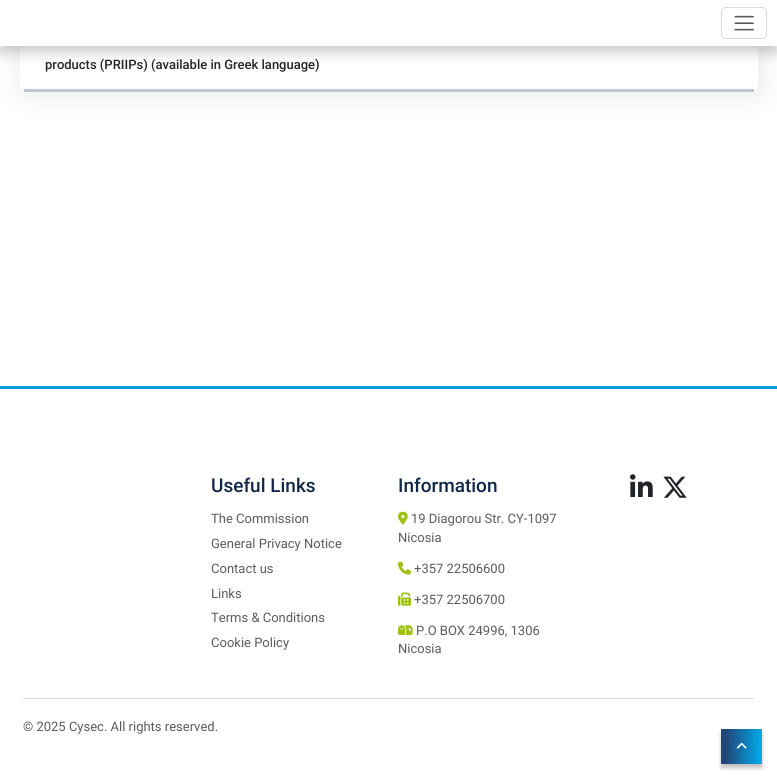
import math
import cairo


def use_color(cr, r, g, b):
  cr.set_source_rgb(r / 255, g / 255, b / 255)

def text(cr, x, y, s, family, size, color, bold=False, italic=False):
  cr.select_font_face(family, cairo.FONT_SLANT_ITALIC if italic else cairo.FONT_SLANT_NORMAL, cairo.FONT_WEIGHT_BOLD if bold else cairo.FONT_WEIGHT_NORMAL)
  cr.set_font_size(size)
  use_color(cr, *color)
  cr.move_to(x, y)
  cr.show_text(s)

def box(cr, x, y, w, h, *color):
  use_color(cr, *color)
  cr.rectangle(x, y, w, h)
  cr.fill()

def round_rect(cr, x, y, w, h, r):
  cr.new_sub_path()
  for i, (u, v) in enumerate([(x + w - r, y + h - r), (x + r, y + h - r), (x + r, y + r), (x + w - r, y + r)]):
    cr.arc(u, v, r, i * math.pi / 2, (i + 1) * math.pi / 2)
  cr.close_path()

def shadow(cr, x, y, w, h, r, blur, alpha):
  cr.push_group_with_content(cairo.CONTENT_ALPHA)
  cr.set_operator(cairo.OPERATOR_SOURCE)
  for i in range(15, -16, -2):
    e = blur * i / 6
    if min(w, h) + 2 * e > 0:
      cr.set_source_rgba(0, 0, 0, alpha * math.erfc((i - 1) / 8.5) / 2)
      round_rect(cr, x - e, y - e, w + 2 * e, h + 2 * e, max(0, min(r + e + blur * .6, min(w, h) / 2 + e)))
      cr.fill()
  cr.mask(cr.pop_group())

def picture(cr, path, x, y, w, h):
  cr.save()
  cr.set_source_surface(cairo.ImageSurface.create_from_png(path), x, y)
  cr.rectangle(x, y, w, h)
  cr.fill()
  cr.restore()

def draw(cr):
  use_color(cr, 255, 255, 255)
  cr.paint()
  use_color(cr, 0, 0, 0)
  shadow(cr, 22, -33, 738, 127, 8, 14, 0.1)
  use_color(cr, 255, 255, 255)
  round_rect(cr, 20, -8, 738, 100, 8)
  cr.fill()
  use_color(cr, 0, 0, 0)
  shadow(cr, 0, 7, 777, 46, 0, 6.5, 0.2)
  box(cr, 0, 0, 777, 46, 255, 255, 255)
  round_rect(cr, 721.5, 7.5, 45, 31, 4.5)
  use_color(cr, 217, 217, 217)
  cr.set_line_width(1)
  cr.stroke()
  picture(cr, "img_01.png", 734, 15, 20, 16)
  box(cr, 24, 89, 730, 3, 190, 199, 208)
  box(cr, 0, 386, 777, 3, 0, 155, 223)
  picture(cr, "img_02.png", 398, 511, 10, 14)
  picture(cr, "img_03.png", 398, 561, 13, 14)
  picture(cr, "img_04.png", 398, 592, 13, 14)
  picture(cr, "img_05.png", 398, 625, 15, 10)
  picture(cr, "img_06.png", 630, 474, 23, 23)
  picture(cr, "img_07.png", 663, 476, 24, 22)
  box(cr, 23, 698, 731, 1, 219, 219, 219)
  use_color(cr, 0, 0, 0)
  shadow(cr, 721, 733, 41, 35, 0, 2, 0.25)
  gradient = cairo.LinearGradient(720, 746, 763, 747)
  gradient.add_color_stop_rgba(0.13, 0.133, 0.271, 0.467, 1)
  gradient.add_color_stop_rgba(0.99, 0, 0.682, 0.937, 1)
  cr.set_source(gradient)
  cr.rectangle(721, 729, 41, 35)
  cr.fill()
  picture(cr, "img_08.png", 736, 742, 11, 7)
  text(cr, 45, 69, "products (PRIIPs) (available in Greek language)", "Roboto Medium", 13, (33, 37, 41))
  text(cr, 211, 492, "Useful Links", "Roboto Medium", 19, (17, 39, 71))
  text(cr, 211, 523, "The Commission", "Roboto", 13, (89, 92, 95))
  text(cr, 211, 548, "General Privacy Notice", "Roboto", 13, (89, 92, 95))
  text(cr, 211, 573, "Contact us", "Roboto", 13, (89, 92, 95))
  text(cr, 211, 598, "Links", "Roboto", 13, (89, 92, 95))
  text(cr, 211, 622, "Terms & Conditions", "Roboto", 13, (89, 92, 95))
  text(cr, 211, 647, "Cookie Policy", "Roboto", 13, (89, 92, 95))
  text(cr, 398, 492, "Information", "Roboto Medium", 19, (17, 39, 71))
  text(cr, 411, 523, "19 Diagorou Str. CY-1097", "Roboto", 13, (89, 92, 95))
  text(cr, 398, 542, "Nicosia", "Roboto", 13, (89, 92, 95))
  text(cr, 414, 573, "+357 22506600", "Roboto", 13, (89, 92, 95))
  text(cr, 414, 604, "+357 22506700", "Roboto", 13, (89, 92, 95))
  text(cr, 416, 635, "P.O BOX 24996, 1306", "Roboto", 13, (89, 92, 95))
  text(cr, 398, 653, "Nicosia", "Roboto", 13, (89, 92, 95))
  text(cr, 23, 731, "© 2025 Cysec. All rights reserved.", "Roboto", 13, (89, 92, 95))


surface = cairo.ImageSurface(cairo.FORMAT_RGB24, 777, 779)
cr = cairo.Context(surface)
options = cairo.FontOptions()
options.set_hint_metrics(cairo.HINT_METRICS_OFF)
options.set_hint_style(cairo.HINT_STYLE_NONE)
cr.set_font_options(options)
cr.set_miter_limit(4)
draw(cr)
surface.write_to_png("out.png")
